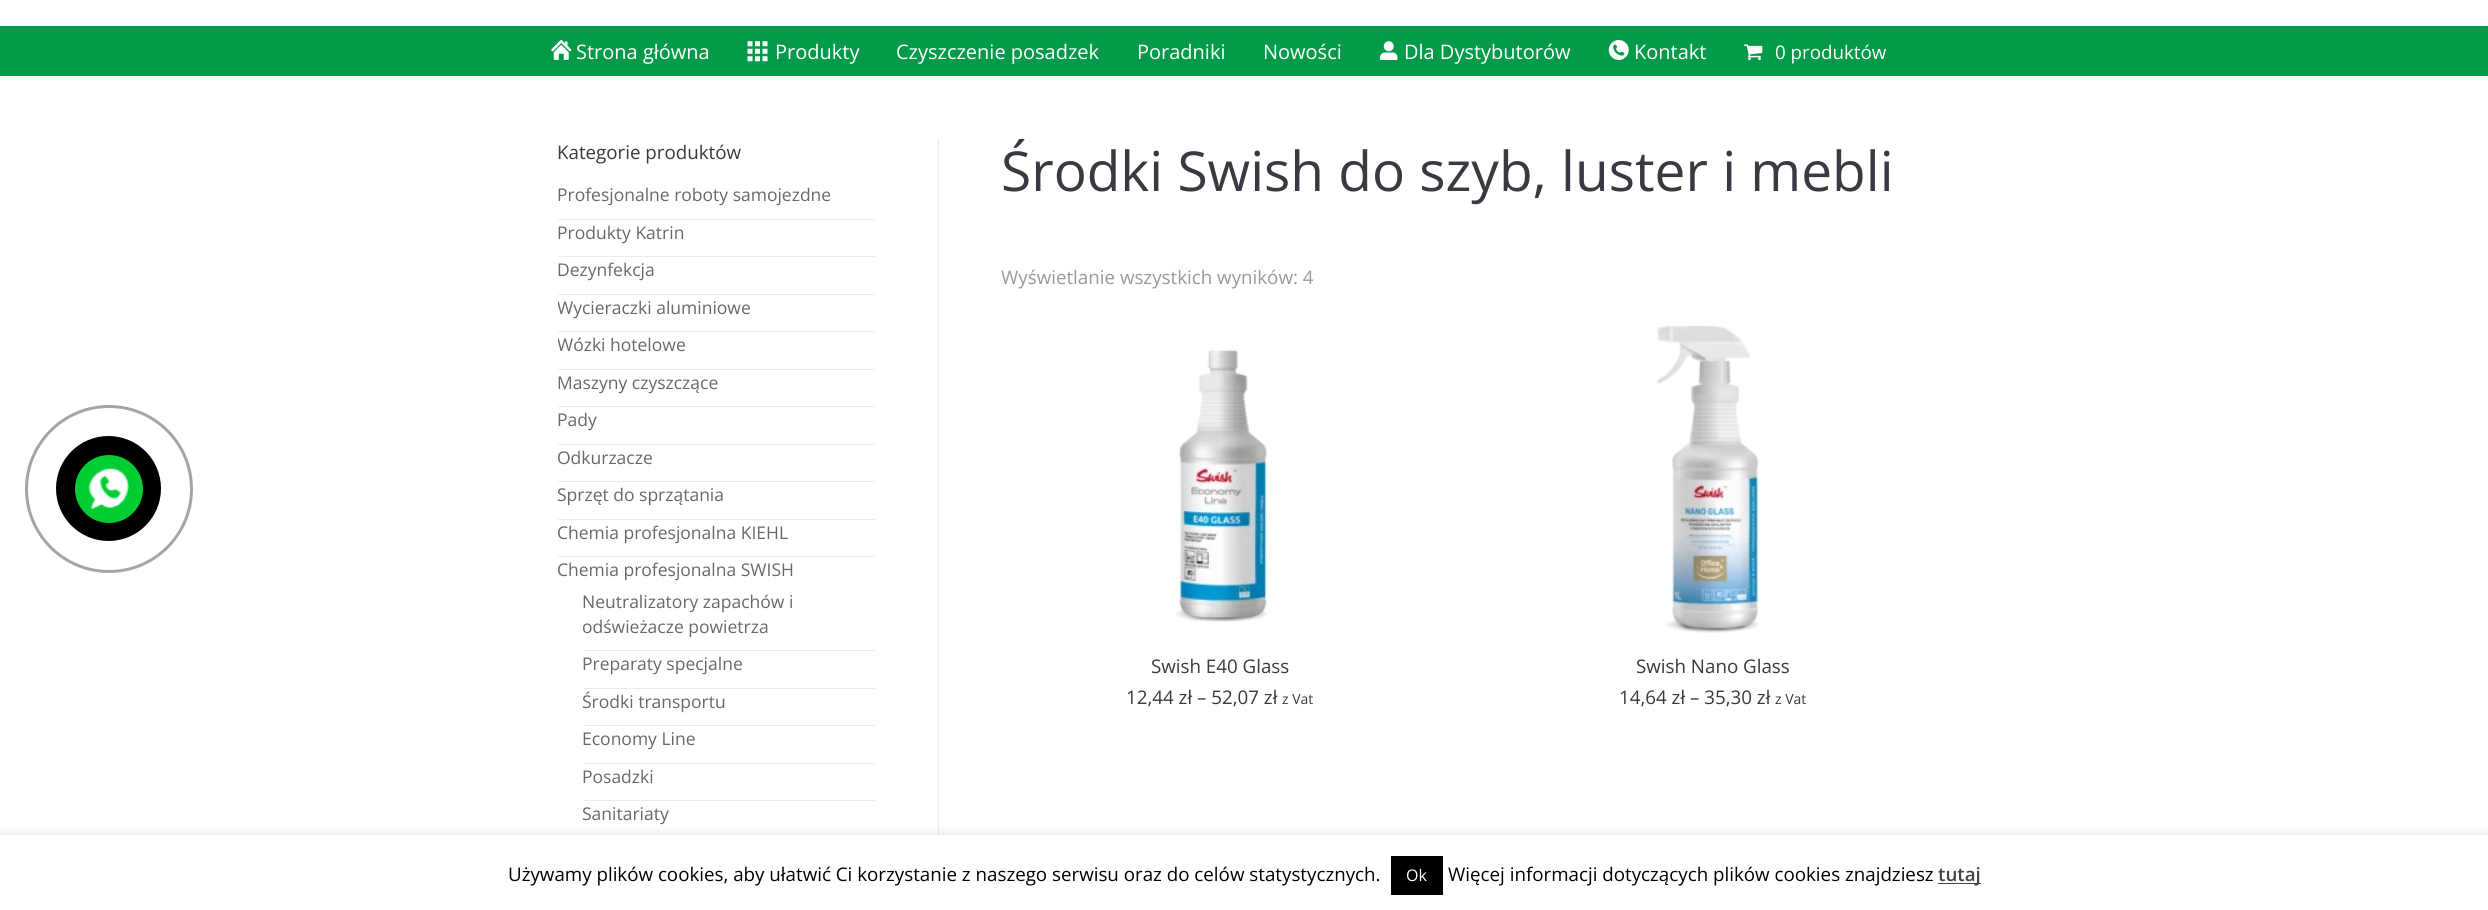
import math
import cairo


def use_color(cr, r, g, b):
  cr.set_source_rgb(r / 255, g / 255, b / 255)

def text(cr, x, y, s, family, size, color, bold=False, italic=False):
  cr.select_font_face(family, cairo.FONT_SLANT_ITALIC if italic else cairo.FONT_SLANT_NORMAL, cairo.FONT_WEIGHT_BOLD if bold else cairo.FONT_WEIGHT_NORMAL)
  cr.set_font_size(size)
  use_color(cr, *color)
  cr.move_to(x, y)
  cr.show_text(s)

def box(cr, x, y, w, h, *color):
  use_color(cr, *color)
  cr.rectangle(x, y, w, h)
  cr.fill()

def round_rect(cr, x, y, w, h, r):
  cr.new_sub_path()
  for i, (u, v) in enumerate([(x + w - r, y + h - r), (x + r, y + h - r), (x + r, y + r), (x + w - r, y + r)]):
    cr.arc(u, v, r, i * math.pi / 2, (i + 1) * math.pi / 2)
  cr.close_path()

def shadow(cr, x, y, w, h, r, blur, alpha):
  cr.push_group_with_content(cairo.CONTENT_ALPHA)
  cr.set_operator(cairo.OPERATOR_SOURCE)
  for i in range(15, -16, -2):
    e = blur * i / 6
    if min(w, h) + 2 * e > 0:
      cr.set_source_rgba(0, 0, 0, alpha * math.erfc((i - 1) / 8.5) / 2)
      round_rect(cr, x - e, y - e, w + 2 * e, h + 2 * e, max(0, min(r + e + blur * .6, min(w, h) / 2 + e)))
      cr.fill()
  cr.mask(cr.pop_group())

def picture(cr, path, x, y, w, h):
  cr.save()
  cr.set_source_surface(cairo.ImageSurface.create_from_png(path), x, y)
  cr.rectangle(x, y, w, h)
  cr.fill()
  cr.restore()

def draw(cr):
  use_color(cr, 255, 255, 255)
  cr.paint()
  cr.arc(109, 489, 82.5, 0, 2 * math.pi)
  use_color(cr, 165, 165, 165)
  cr.set_line_width(3)
  cr.stroke()
  use_color(cr, 0, 0, 0)
  cr.arc(108.5, 488.5, 52.5, 0, 2 * math.pi)
  cr.fill()
  use_color(cr, 0, 204, 51)
  cr.arc(109, 489, 34, 0, 2 * math.pi)
  cr.fill()
  picture(cr, "img_01.png", 88, 468, 41, 41)
  box(cr, 0, 26, 2488, 50, 3, 154, 73)
  picture(cr, "img_02.png", 551, 40, 21, 20)
  picture(cr, "img_03.png", 747, 41, 21, 21)
  picture(cr, "img_04.png", 1380, 41, 18, 19)
  picture(cr, "img_05.png", 1608, 40, 21, 20)
  picture(cr, "img_06.png", 1743, 44, 20, 17)
  box(cr, 938, 139, 1, 696, 235, 235, 236)
  box(cr, 558, 219, 317, 1, 235, 235, 236)
  box(cr, 558, 256, 317, 1, 235, 235, 236)
  box(cr, 558, 294, 317, 1, 235, 235, 236)
  box(cr, 558, 331, 317, 1, 235, 235, 236)
  box(cr, 558, 369, 317, 1, 235, 235, 236)
  box(cr, 558, 406, 317, 1, 235, 235, 236)
  box(cr, 558, 444, 317, 1, 235, 235, 236)
  box(cr, 558, 481, 317, 1, 235, 235, 236)
  box(cr, 558, 519, 317, 1, 235, 235, 236)
  box(cr, 558, 556, 317, 1, 235, 235, 236)
  box(cr, 583, 650, 292, 1, 235, 235, 236)
  box(cr, 583, 688, 292, 1, 235, 235, 236)
  box(cr, 583, 725, 292, 1, 235, 235, 236)
  box(cr, 583, 763, 292, 1, 235, 235, 236)
  box(cr, 583, 800, 292, 1, 235, 235, 236)
  picture(cr, "img_07.png", 1175, 349, 93, 273)
  picture(cr, "img_08.png", 1656, 326, 103, 307)
  use_color(cr, 172, 171, 171)
  shadow(cr, 0, 834, 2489, 75, 0, 6, 0.3)
  box(cr, 0, 835, 2488, 75, 255, 255, 255)
  box(cr, 1391, 856, 52, 39, 0, 0, 0)
  box(cr, 1938, 883, 43, 1, 68, 68, 68)
  text(cr, 576, 59, "Strona główna", "Open Sans", 20, (255, 255, 255))
  text(cr, 775, 59, "Produkty", "Open Sans", 20, (255, 255, 255))
  text(cr, 896, 59, "Czyszczenie posadzek", "Open Sans", 20, (255, 255, 255))
  text(cr, 1137, 59, "Poradniki", "Open Sans", 20, (255, 255, 255))
  text(cr, 1263, 59, "Nowości", "Open Sans", 20, (255, 255, 255))
  text(cr, 1404, 59, "Dla Dystybutorów", "Open Sans", 20, (255, 255, 255))
  text(cr, 1634, 59, "Kontakt", "Open Sans", 20, (255, 255, 255))
  text(cr, 1775, 59, "0 produktów", "Open Sans", 18.75, (255, 255, 255))
  text(cr, 557, 159, "Kategorie produktów", "Open Sans", 18.75, (55, 58, 65))
  text(cr, 557, 201, "Profesjonalne roboty samojezdne", "Open Sans", 17.5, (104, 104, 104))
  text(cr, 557, 239, "Produkty Katrin", "Open Sans", 17.5, (104, 104, 104))
  text(cr, 557, 276, "Dezynfekcja", "Open Sans", 17.5, (104, 104, 104))
  cr.save()
  cr.rectangle(558, 295, 317, 25)
  cr.clip()
  text(cr, 557, 314, "Wycieraczki aluminiowe", "Open Sans", 17.5, (104, 104, 104))
  cr.restore()
  cr.save()
  cr.rectangle(558, 333, 317, 25)
  cr.clip()
  text(cr, 557, 351, "Wózki hotelowe", "Open Sans", 17.5, (104, 104, 104))
  cr.restore()
  text(cr, 557, 389, "Maszyny czyszczące", "Open Sans", 17.5, (104, 104, 104))
  text(cr, 557, 426, "Pady", "Open Sans", 17.5, (104, 104, 104))
  text(cr, 557, 464, "Odkurzacze", "Open Sans", 17.5, (104, 104, 104))
  text(cr, 557, 501, "Sprzęt do sprzątania", "Open Sans", 17.5, (104, 104, 104))
  text(cr, 557, 539, "Chemia profesjonalna KIEHL", "Open Sans", 17.5, (104, 104, 104))
  text(cr, 557, 576, "Chemia profesjonalna SWISH", "Open Sans", 17.5, (104, 104, 104))
  text(cr, 582, 608, "Neutralizatory zapachów i", "Open Sans", 17.5, (104, 104, 104))
  text(cr, 582, 633, "odświeżacze powietrza", "Open Sans", 17.5, (104, 104, 104))
  text(cr, 582, 670, "Preparaty specjalne", "Open Sans", 17.5, (104, 104, 104))
  text(cr, 582, 708, "Środki transportu", "Open Sans", 17.5, (104, 104, 104))
  text(cr, 582, 745, "Economy Line", "Open Sans", 17.5, (104, 104, 104))
  text(cr, 582, 783, "Posadzki", "Open Sans", 17.5, (104, 104, 104))
  text(cr, 582, 820, "Sanitariaty", "Open Sans", 17.5, (104, 104, 104))
  text(cr, 1001, 191, "Środki Swish do szyb, luster i mebli", "Open Sans", 55, (55, 58, 65))
  text(cr, 1001, 284, "Wyświetlanie wszystkich wyników: 4", "Open Sans", 18.75, (153, 153, 153))
  text(cr, 1151, 673, "Swish E40 Glass", "Open Sans", 18.75, (55, 58, 65))
  text(cr, 1126, 704, "12,44 zł – 52,07 zł", "Open Sans", 18.75, (55, 58, 65))
  text(cr, 1282, 704, "z Vat", "Open Sans", 14, (55, 58, 65))
  text(cr, 1636, 673, "Swish Nano Glass", "Open Sans", 18.75, (55, 58, 65))
  text(cr, 1619, 704, "14,64 zł – 35,30 zł", "Open Sans", 18.75, (55, 58, 65))
  text(cr, 1775, 704, "z Vat", "Open Sans", 14, (55, 58, 65))
  text(cr, 508, 881, "Używamy plików cookies, aby ułatwić Ci korzystanie z naszego serwisu oraz do celów statystycznych.", "Open Sans", 18.75, (0, 0, 0))
  text(cr, 1406, 881, "Ok", "Open Sans", 16, (255, 255, 255))
  text(cr, 1448, 881, "Więcej informacji dotyczących plików cookies znajdziesz", "Open Sans", 18.75, (0, 0, 0))
  text(cr, 1938, 881, "tutaj", "Open Sans SemiBold", 18.75, (68, 68, 68))


surface = cairo.ImageSurface(cairo.FORMAT_RGB24, 2488, 910)
cr = cairo.Context(surface)
options = cairo.FontOptions()
options.set_hint_metrics(cairo.HINT_METRICS_OFF)
options.set_hint_style(cairo.HINT_STYLE_NONE)
cr.set_font_options(options)
cr.set_miter_limit(4)
draw(cr)
surface.write_to_png("out.png")
